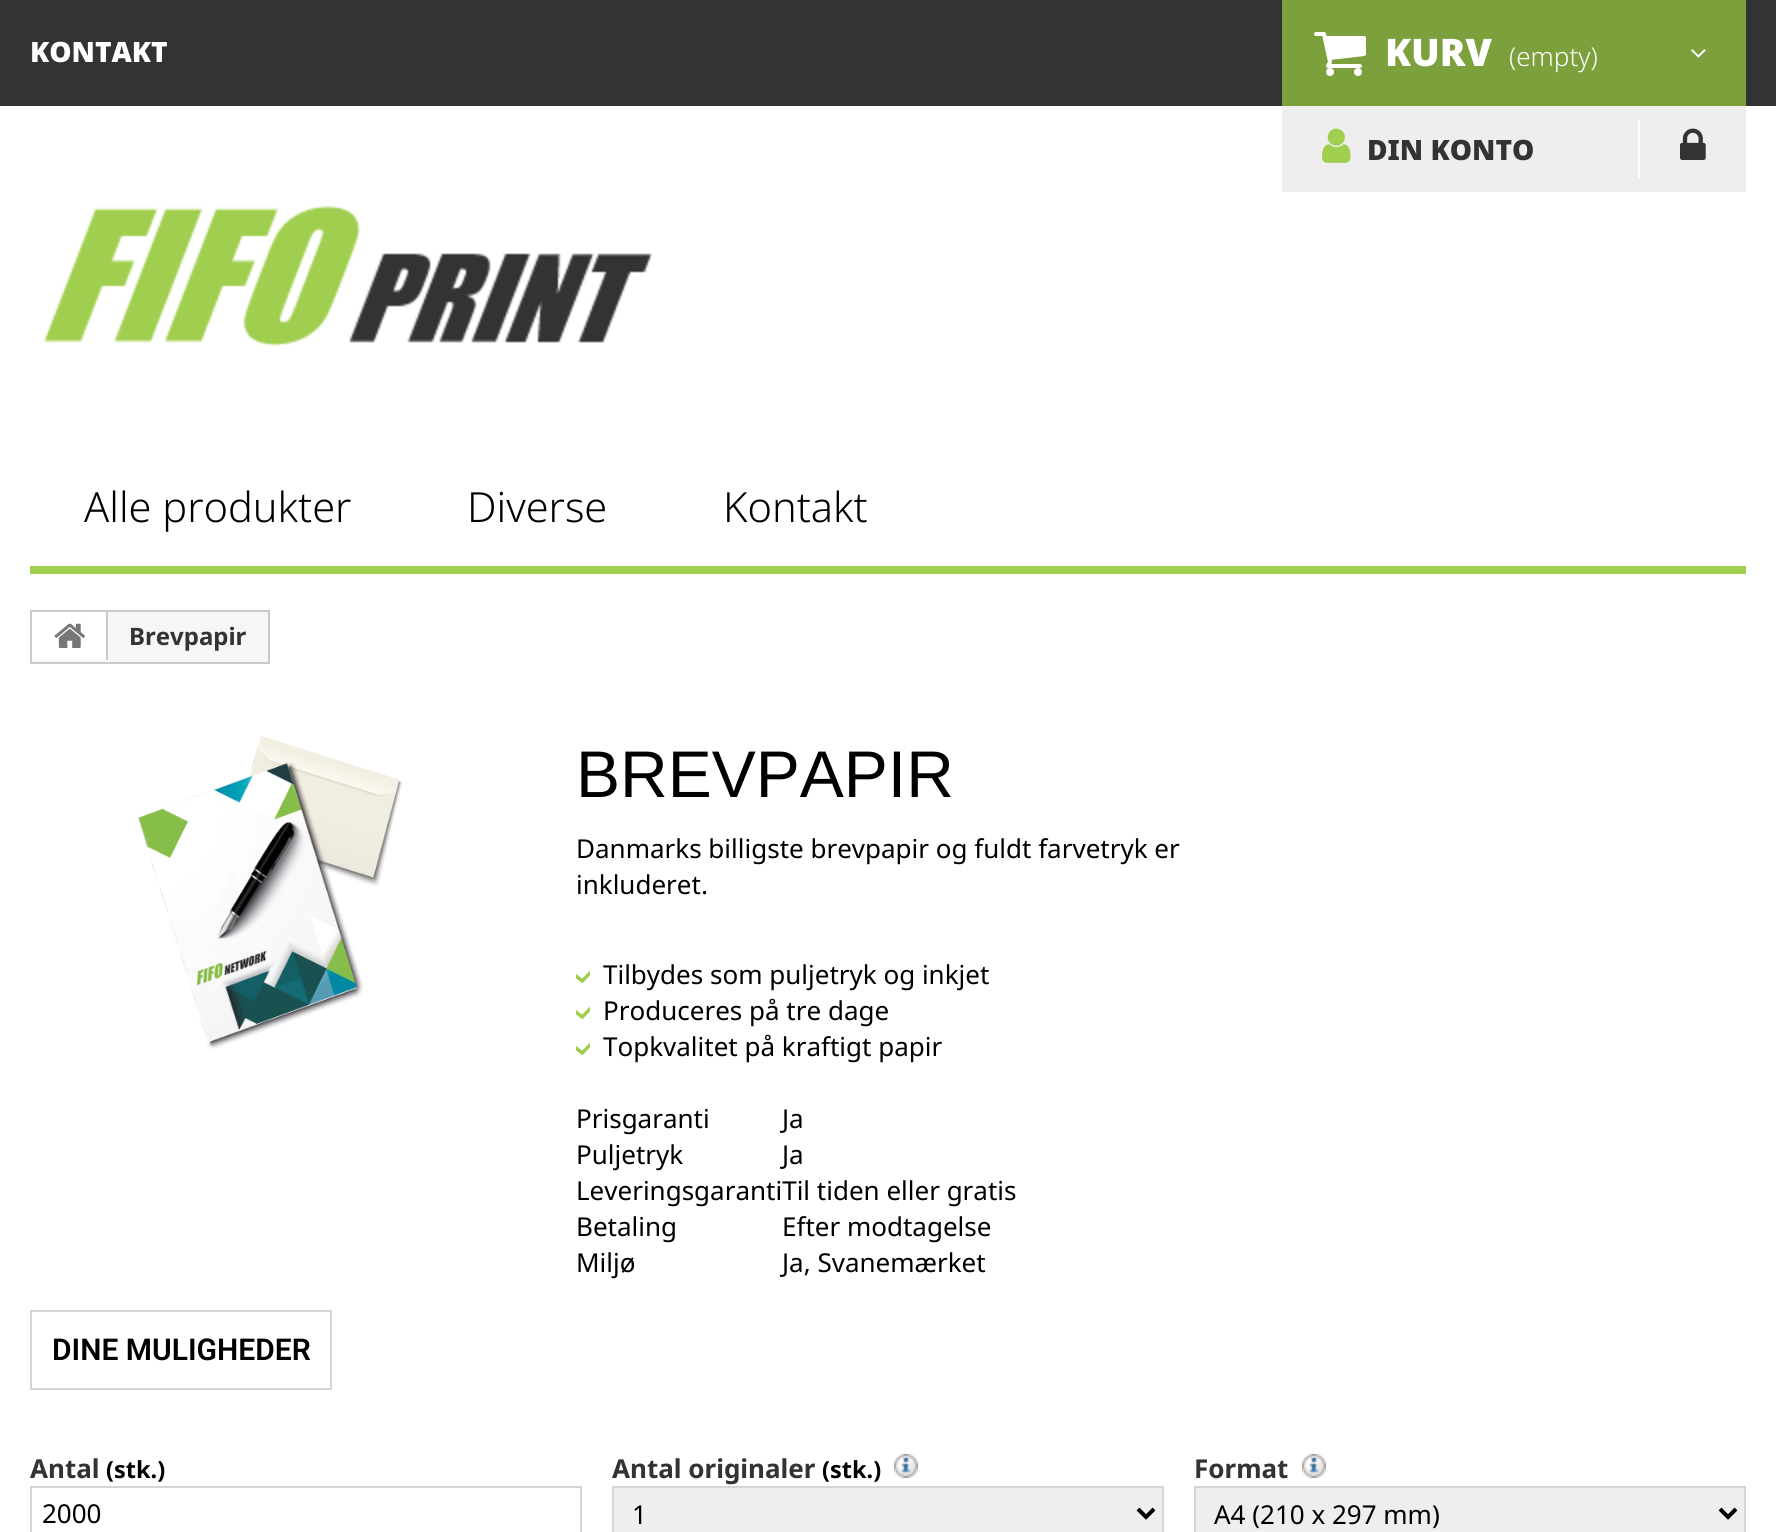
import math
import cairo


def use_color(cr, r, g, b):
  cr.set_source_rgb(r / 255, g / 255, b / 255)

def text(cr, x, y, s, family, size, color, bold=False, italic=False):
  cr.select_font_face(family, cairo.FONT_SLANT_ITALIC if italic else cairo.FONT_SLANT_NORMAL, cairo.FONT_WEIGHT_BOLD if bold else cairo.FONT_WEIGHT_NORMAL)
  cr.set_font_size(size)
  use_color(cr, *color)
  cr.move_to(x, y)
  cr.show_text(s)

def box(cr, x, y, w, h, *color):
  use_color(cr, *color)
  cr.rectangle(x, y, w, h)
  cr.fill()

def picture(cr, path, x, y, w, h):
  cr.save()
  cr.set_source_surface(cairo.ImageSurface.create_from_png(path), x, y)
  cr.rectangle(x, y, w, h)
  cr.fill()
  cr.restore()

def draw(cr):
  use_color(cr, 255, 255, 255)
  cr.paint()
  box(cr, 0, 0, 1776, 106, 51, 51, 51)
  box(cr, 1282, 0, 464, 106, 124, 160, 59)
  picture(cr, "img_01.png", 1314, 32, 52, 44)
  picture(cr, "img_02.png", 1691, 49, 15, 9)
  box(cr, 1282, 106, 464, 86, 238, 238, 238)
  picture(cr, "img_03.png", 1322, 128, 29, 35)
  box(cr, 1638, 120, 2, 58, 255, 255, 255)
  picture(cr, "img_04.png", 1680, 128, 26, 32)
  picture(cr, "img_05.png", 43, 205, 610, 142)
  box(cr, 30, 566, 1716, 8, 160, 206, 78)
  use_color(cr, 246, 246, 246)
  cr.rectangle(31, 611, 238, 52)
  cr.fill_preserve()
  use_color(cr, 202, 202, 202)
  cr.stroke()
  box(cr, 32, 612, 74, 48, 255, 255, 255)
  box(cr, 106, 612, 2, 48, 202, 202, 202)
  picture(cr, "img_06.png", 54, 623, 31, 25)
  picture(cr, "img_07.png", 138, 736, 264, 313)
  picture(cr, "img_08.png", 576, 970, 14, 14)
  picture(cr, "img_08.png", 576, 1006, 14, 14)
  picture(cr, "img_08.png", 576, 1042, 14, 14)
  cr.rectangle(31, 1311, 300, 78)
  use_color(cr, 214, 212, 212)
  cr.stroke()
  cr.rectangle(31, 1487, 550, 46)
  cr.stroke()
  picture(cr, "img_09.png", 894, 1454, 24, 24)
  use_color(cr, 239, 239, 239)
  cr.rectangle(613, 1487, 550, 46)
  cr.fill_preserve()
  use_color(cr, 214, 212, 212)
  cr.stroke()
  cr.new_path()
  cr.move_to(1138, 1509)
  cr.line_to(1146, 1517)
  cr.line_to(1154, 1509)
  use_color(cr, 0, 0, 0)
  cr.set_line_width(4)
  cr.stroke()
  picture(cr, "img_09.png", 1302, 1454, 24, 24)
  use_color(cr, 238, 238, 238)
  cr.rectangle(1195, 1487, 550, 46)
  cr.fill_preserve()
  use_color(cr, 214, 212, 212)
  cr.set_line_width(2)
  cr.stroke()
  cr.new_path()
  cr.move_to(1720, 1509)
  cr.line_to(1728, 1517)
  cr.line_to(1736, 1509)
  use_color(cr, 0, 0, 0)
  cr.set_line_width(4)
  cr.stroke()
  text(cr, 30, 62, "KONTAKT", "Noto Sans Black", 28, (255, 255, 255))
  text(cr, 1385, 66, "KURV", "Noto Sans Black", 38, (255, 255, 255))
  text(cr, 1509, 66, "(empty)", "Noto Sans Light", 26, (255, 255, 255))
  text(cr, 1367, 160, "DIN KONTO", "Noto Sans Black", 28, (51, 51, 51))
  text(cr, 84, 522, "Alle produkter", "Noto Sans Light", 41.5, (0, 0, 0))
  text(cr, 467, 522, "Diverse", "Noto Sans Light", 41.5, (0, 0, 0))
  text(cr, 723, 522, "Kontakt", "Noto Sans Light", 41.5, (0, 0, 0))
  text(cr, 129, 645, "Brevpapir", "Noto Sans", 24, (51, 51, 51), bold=True)
  text(cr, 576, 797, "BREVPAPIR", "Liberation Sans", 66, (0, 0, 0))
  text(cr, 576, 858, "Danmarks billigste brevpapir og fuldt farvetryk er", "Noto Sans", 26, (0, 0, 0))
  text(cr, 576, 894, "inkluderet.", "Noto Sans", 26, (0, 0, 0))
  text(cr, 603, 984, "Tilbydes som puljetryk og inkjet", "Noto Sans", 26, (0, 0, 0))
  text(cr, 603, 1020, "Produceres på tre dage", "Noto Sans", 26, (0, 0, 0))
  text(cr, 603, 1056, "Topkvalitet på kraftigt papir", "Noto Sans", 26, (0, 0, 0))
  text(cr, 576, 1128, "Prisgaranti", "Noto Sans", 26, (0, 0, 0))
  text(cr, 782, 1128, "Ja", "Noto Sans", 26, (0, 0, 0))
  text(cr, 576, 1164, "Puljetryk", "Noto Sans", 26, (0, 0, 0))
  text(cr, 782, 1164, "Ja", "Noto Sans", 26, (0, 0, 0))
  text(cr, 576, 1200, "LeveringsgarantiTil tiden eller gratis", "Noto Sans", 26, (0, 0, 0))
  text(cr, 576, 1236, "Betaling", "Noto Sans", 26, (0, 0, 0))
  text(cr, 782, 1236, "Efter modtagelse", "Noto Sans", 26, (0, 0, 0))
  text(cr, 576, 1272, "Miljø", "Noto Sans", 26, (0, 0, 0))
  text(cr, 782, 1272, "Ja, Svanemærket", "Noto Sans", 26, (0, 0, 0))
  text(cr, 52, 1360, "DINE MULIGHEDER", "Roboto SemiBold", 30, (0, 0, 0))
  text(cr, 30, 1478, "Antal", "Noto Sans", 26, (51, 51, 51), bold=True)
  text(cr, 106, 1478, "(stk.)", "Noto Sans", 23.5, (0, 0, 0), bold=True)
  text(cr, 42, 1523, "2000", "Noto Sans", 26, (0, 0, 0))
  text(cr, 612, 1478, "Antal originaler", "Noto Sans", 26, (51, 51, 51), bold=True)
  text(cr, 822, 1478, "(stk.)", "Noto Sans", 23.5, (0, 0, 0), bold=True)
  text(cr, 632, 1524, "1", "Noto Sans", 26, (0, 0, 0))
  text(cr, 1194, 1478, "Format", "Noto Sans", 26, (51, 51, 51), bold=True)
  text(cr, 1214, 1524, "A4 (210 x 297 mm)", "Noto Sans", 26, (0, 0, 0))


surface = cairo.ImageSurface(cairo.FORMAT_RGB24, 1776, 1532)
cr = cairo.Context(surface)
options = cairo.FontOptions()
options.set_hint_metrics(cairo.HINT_METRICS_OFF)
options.set_hint_style(cairo.HINT_STYLE_NONE)
cr.set_font_options(options)
cr.set_miter_limit(4)
draw(cr)
surface.write_to_png("out.png")
